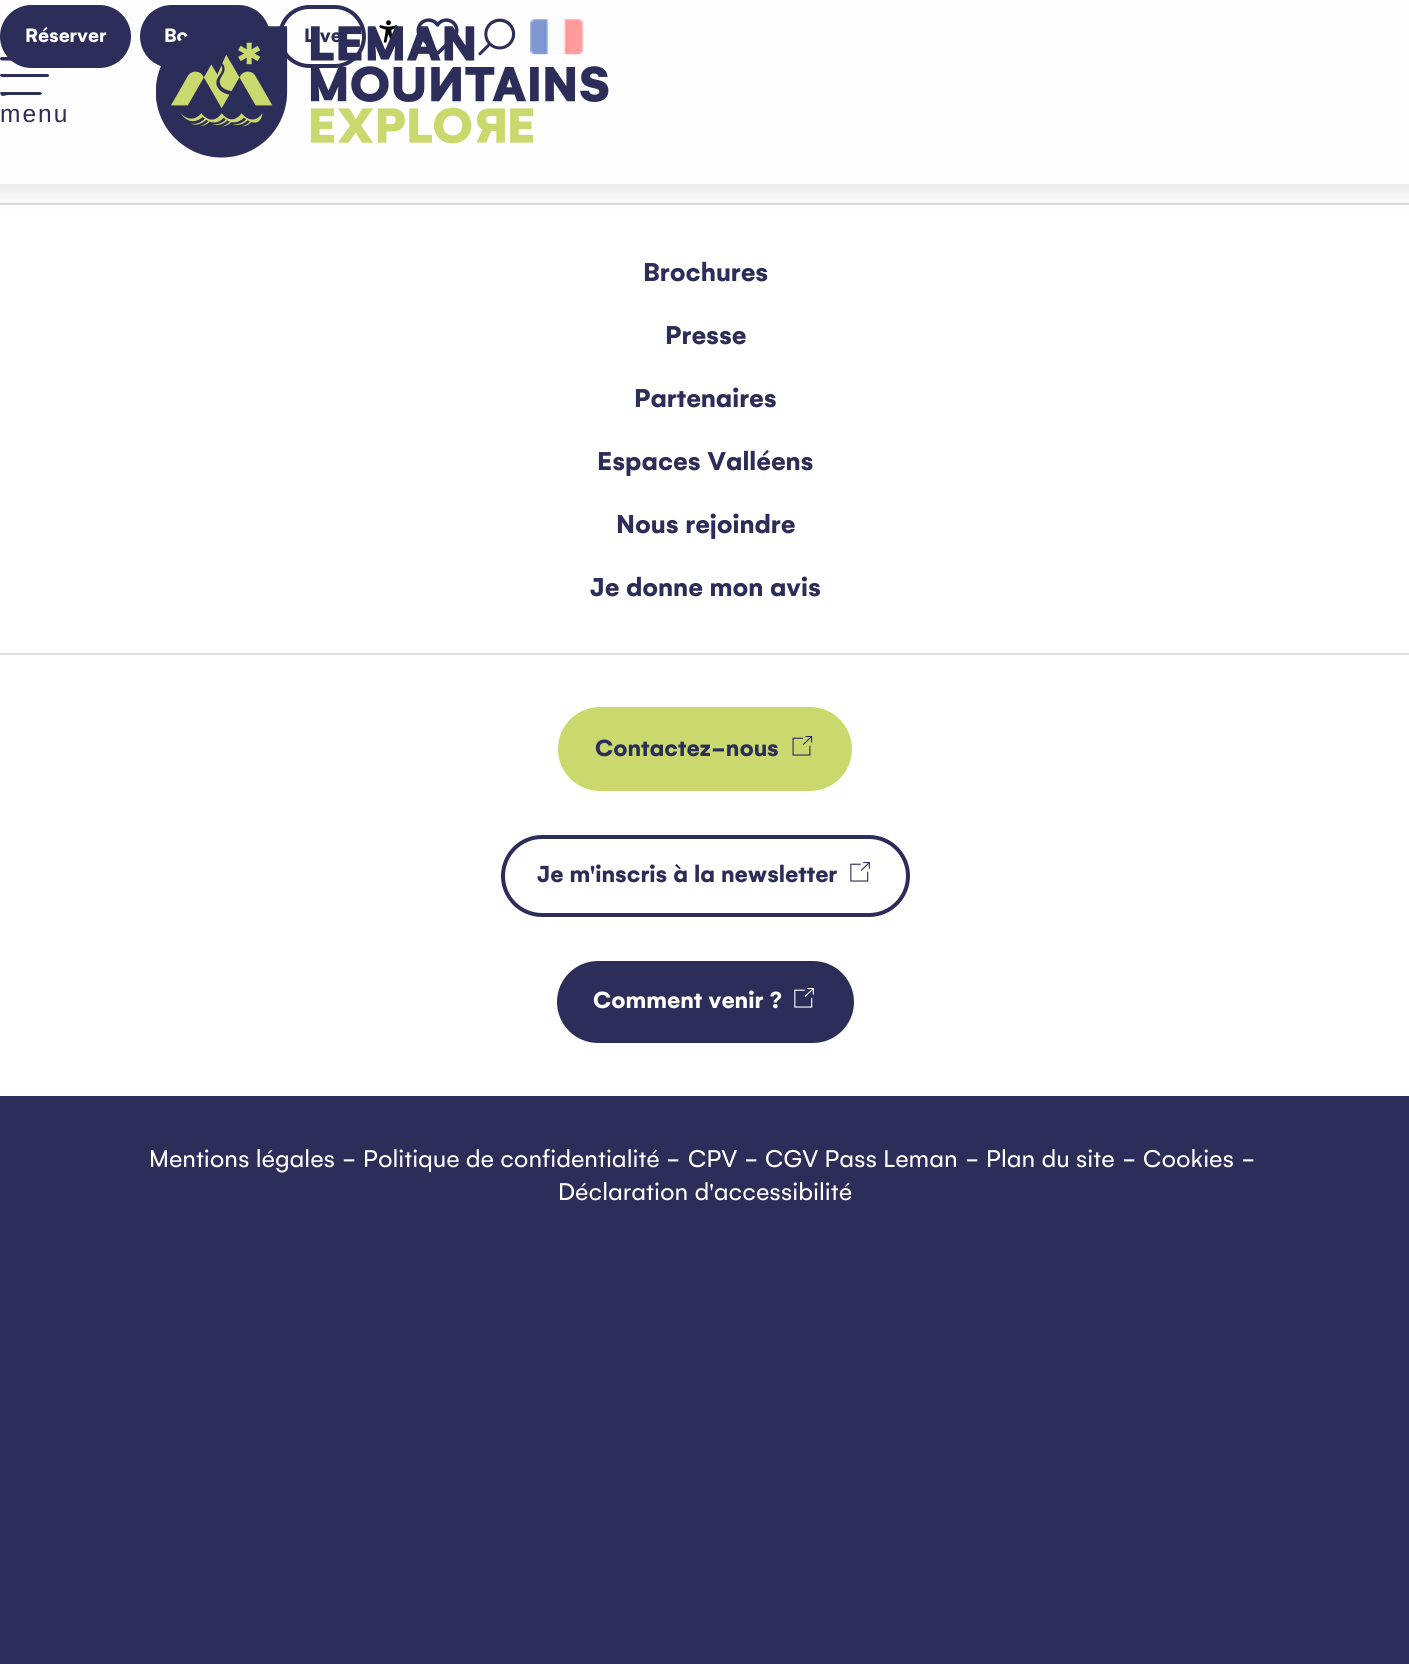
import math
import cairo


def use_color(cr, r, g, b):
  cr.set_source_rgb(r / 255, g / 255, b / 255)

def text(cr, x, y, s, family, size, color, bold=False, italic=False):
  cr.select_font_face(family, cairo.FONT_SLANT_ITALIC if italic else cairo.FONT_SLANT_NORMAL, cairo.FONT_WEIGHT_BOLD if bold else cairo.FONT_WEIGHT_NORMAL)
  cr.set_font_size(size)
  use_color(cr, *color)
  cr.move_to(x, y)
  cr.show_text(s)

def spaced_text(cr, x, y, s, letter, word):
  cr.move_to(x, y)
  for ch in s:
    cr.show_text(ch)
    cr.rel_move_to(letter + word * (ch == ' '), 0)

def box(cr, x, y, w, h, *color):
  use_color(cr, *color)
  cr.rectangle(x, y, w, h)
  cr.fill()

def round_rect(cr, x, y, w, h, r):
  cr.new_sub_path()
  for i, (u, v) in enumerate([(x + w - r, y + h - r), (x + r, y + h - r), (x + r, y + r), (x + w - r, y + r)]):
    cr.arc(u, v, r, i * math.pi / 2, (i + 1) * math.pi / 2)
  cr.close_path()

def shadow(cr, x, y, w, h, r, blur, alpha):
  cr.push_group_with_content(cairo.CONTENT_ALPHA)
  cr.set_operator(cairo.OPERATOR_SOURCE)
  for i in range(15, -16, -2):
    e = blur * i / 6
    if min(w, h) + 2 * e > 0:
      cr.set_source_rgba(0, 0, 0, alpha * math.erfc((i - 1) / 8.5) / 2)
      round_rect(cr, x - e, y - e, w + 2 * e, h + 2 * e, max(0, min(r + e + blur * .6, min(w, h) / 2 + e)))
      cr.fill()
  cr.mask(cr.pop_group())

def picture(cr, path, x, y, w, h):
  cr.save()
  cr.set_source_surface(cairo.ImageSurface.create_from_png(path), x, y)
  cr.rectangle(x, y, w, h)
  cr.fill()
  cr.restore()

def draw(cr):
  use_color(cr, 255, 255, 255)
  cr.paint()
  box(cr, 0, 203, 1409, 2, 221, 221, 228)
  use_color(cr, 1, 1, 1)
  shadow(cr, -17, -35, 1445, 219, 0, 17.5, 0.15)
  box(cr, 0, 0, 1409, 184, 254, 254, 254)
  use_color(cr, 45, 45, 89)
  round_rect(cr, 0, 5, 131, 63, 31.5)
  cr.fill()
  round_rect(cr, 140, 5, 130, 63, 31.5)
  cr.fill()
  round_rect(cr, 280, 7, 84, 59, 29.5)
  cr.set_line_width(4)
  cr.stroke()
  picture(cr, "img_01.png", 379, 20, 19, 23)
  picture(cr, "img_02.png", 416, 18, 43, 37)
  picture(cr, "img_03.png", 478, 18, 38, 38)
  picture(cr, "img_04.png", 530, 19, 54, 36)
  cr.new_path()
  cr.move_to(35, 57)
  cr.line_to(2, 57)
  cr.curve_to(1, 57, 0, 57.5, 0, 58.5)
  cr.curve_to(0, 59.5, 1, 60.5, 2, 60.5)
  cr.line_to(35, 60.5)
  cr.curve_to(36, 60.5, 37, 59.5, 37, 58.5)
  cr.curve_to(37, 57.5, 36, 57, 35, 57)
  cr.close_path()
  cr.move_to(47, 74)
  cr.line_to(1, 74)
  cr.line_to(0, 75)
  cr.curve_to(0, 78, 6, 77, 9, 77)
  cr.line_to(48, 77)
  cr.curve_to(50, 76, 49, 74, 47, 74)
  cr.close_path()
  cr.move_to(40, 92)
  cr.line_to(1, 92)
  cr.curve_to(0, 92, 0, 94, 1, 95)
  cr.curve_to(2, 97, 6, 95, 8, 95)
  cr.line_to(40, 95)
  cr.line_to(42, 94)
  cr.curve_to(42, 93, 41, 92, 40, 92)
  cr.close_path()
  cr.fill()
  box(cr, 0, 653, 1409, 2, 221, 221, 228)
  use_color(cr, 202, 217, 109)
  round_rect(cr, 558, 707, 294, 84, 42)
  cr.fill()
  picture(cr, "img_06.png", 792, 736, 21, 20)
  round_rect(cr, 503, 837, 405, 78, 39)
  use_color(cr, 45, 45, 89)
  cr.stroke()
  picture(cr, "img_07.png", 850, 862, 20, 20)
  round_rect(cr, 557, 961, 297, 82, 41)
  cr.fill()
  picture(cr, "img_08.png", 794, 988, 20, 20)
  box(cr, 0, 1096, 1409, 568, 45, 45, 89)
  text(cr, 25, 42, "Réserver", "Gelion", 21, (254, 254, 254), bold=True)
  text(cr, 164, 42, "Bo", "Gelion", 21, (254, 254, 254), bold=True)
  text(cr, 304, 42, "Live", "Gelion", 21, (45, 45, 89), bold=True)
  cr.select_font_face("Liberation Sans")
  cr.set_font_size(24.5)
  spaced_text(cr, 0, 122, "menu", 2, 0)
  picture(cr, "img_05.png", 156, 26, 453, 132)
  text(cr, 643, 281, "Brochures", "Gelion", 28, (45, 45, 89), bold=True)
  text(cr, 665, 344, "Presse", "Gelion", 28, (45, 45, 89), bold=True)
  text(cr, 634, 407, "Partenaires", "Gelion", 28, (45, 45, 89), bold=True)
  text(cr, 597, 470, "Espaces Valléens", "Gelion", 28, (45, 45, 89), bold=True)
  text(cr, 616, 533, "Nous rejoindre", "Gelion", 28, (45, 45, 89), bold=True)
  text(cr, 590, 596, "Je donne mon avis", "Gelion", 28, (45, 45, 89), bold=True)
  text(cr, 595, 756, "Contactez-nous", "Gelion", 25.25, (45, 45, 89), bold=True)
  text(cr, 537, 882, "Je m'inscris à la newsletter", "Gelion", 25.25, (45, 45, 89), bold=True)
  text(cr, 593, 1008, "Comment venir ?", "Gelion", 25.25, (254, 254, 254), bold=True)
  text(cr, 149, 1167, "Mentions légales", "Gelion", 26.25, (254, 254, 254))
  text(cr, 342, 1167, "-", "Gelion", 28, (254, 254, 254))
  text(cr, 363, 1167, "Politique de confidentialité", "Gelion", 26.25, (254, 254, 254))
  text(cr, 666, 1167, "-", "Gelion", 28, (254, 254, 254))
  text(cr, 688, 1167, "CPV", "Gelion", 26.25, (254, 254, 254))
  text(cr, 744, 1167, "-", "Gelion", 28, (254, 254, 254))
  text(cr, 765, 1167, "CGV Pass Leman", "Gelion", 26.25, (254, 254, 254))
  text(cr, 965, 1167, "-", "Gelion", 28, (254, 254, 254))
  text(cr, 986, 1167, "Plan du site", "Gelion", 26.25, (254, 254, 254))
  text(cr, 1122, 1167, "-", "Gelion", 28, (254, 254, 254))
  text(cr, 1143, 1167, "Cookies", "Gelion", 26.25, (254, 254, 254))
  text(cr, 1241, 1167, "-", "Gelion", 28, (254, 254, 254))
  text(cr, 558, 1200, "Déclaration d'accessibilité", "Gelion", 26.25, (254, 254, 254))


surface = cairo.ImageSurface(cairo.FORMAT_RGB24, 1409, 1664)
cr = cairo.Context(surface)
options = cairo.FontOptions()
options.set_hint_metrics(cairo.HINT_METRICS_OFF)
options.set_hint_style(cairo.HINT_STYLE_NONE)
cr.set_font_options(options)
cr.set_miter_limit(4)
draw(cr)
surface.write_to_png("out.png")
